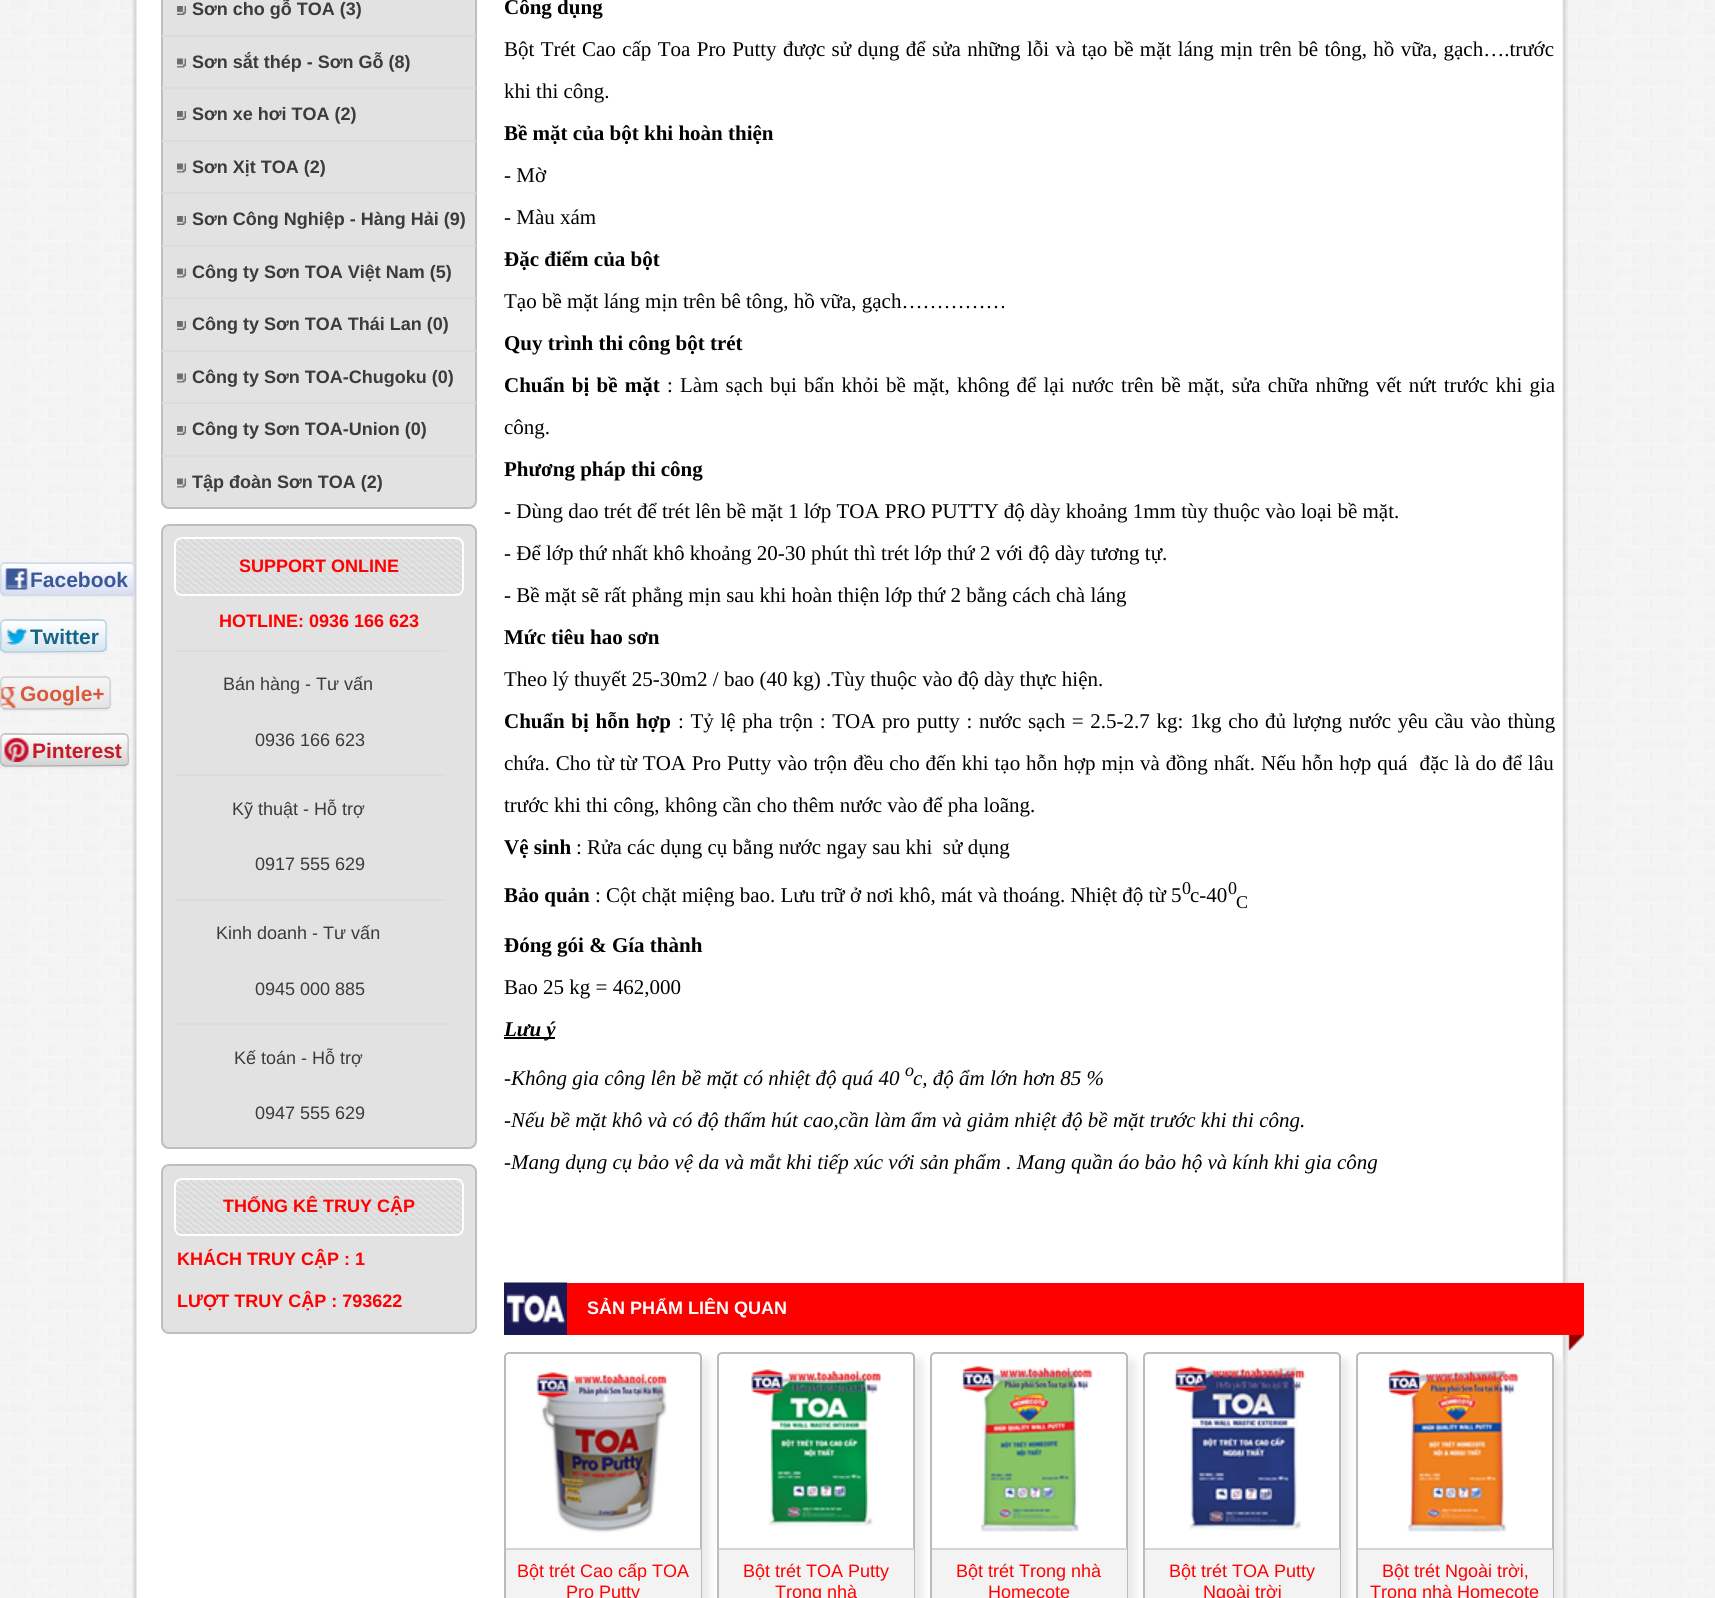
import math
import cairo


def use_color(cr, r, g, b):
  cr.set_source_rgb(r / 255, g / 255, b / 255)

def text(cr, x, y, s, family, size, color, bold=False, italic=False):
  cr.select_font_face(family, cairo.FONT_SLANT_ITALIC if italic else cairo.FONT_SLANT_NORMAL, cairo.FONT_WEIGHT_BOLD if bold else cairo.FONT_WEIGHT_NORMAL)
  cr.set_font_size(size)
  use_color(cr, *color)
  cr.move_to(x, y)
  cr.show_text(s)

def spaced_text(cr, x, y, s, letter, word):
  cr.move_to(x, y)
  for ch in s:
    cr.show_text(ch)
    cr.rel_move_to(letter + word * (ch == ' '), 0)

def box(cr, x, y, w, h, *color):
  use_color(cr, *color)
  cr.rectangle(x, y, w, h)
  cr.fill()

def round_rect(cr, x, y, w, h, r):
  cr.new_sub_path()
  for i, (u, v) in enumerate([(x + w - r, y + h - r), (x + r, y + h - r), (x + r, y + r), (x + w - r, y + r)]):
    cr.arc(u, v, r, i * math.pi / 2, (i + 1) * math.pi / 2)
  cr.close_path()

def shadow(cr, x, y, w, h, r, blur, alpha):
  cr.push_group_with_content(cairo.CONTENT_ALPHA)
  cr.set_operator(cairo.OPERATOR_SOURCE)
  for i in range(15, -16, -2):
    e = blur * i / 6
    if min(w, h) + 2 * e > 0:
      cr.set_source_rgba(0, 0, 0, alpha * math.erfc((i - 1) / 8.5) / 2)
      round_rect(cr, x - e, y - e, w + 2 * e, h + 2 * e, max(0, min(r + e + blur * .6, min(w, h) / 2 + e)))
      cr.fill()
  cr.mask(cr.pop_group())

def picture(cr, path, x, y, w, h):
  cr.save()
  cr.set_source_surface(cairo.ImageSurface.create_from_png(path), x, y)
  cr.rectangle(x, y, w, h)
  cr.fill()
  cr.restore()

def draw(cr):
  use_color(cr, 255, 255, 255)
  cr.paint()
  picture(cr, "img_01.png", 0, 0, 1715, 1598)
  picture(cr, "img_06.png", 132, 0, 1436, 1598)
  use_color(cr, 0, 0, 0)
  shadow(cr, 0, 564, 135, 33, 5, 1, 0.05)
  cr.save()
  round_rect(cr, 0, 563, 135, 33, 5)
  cr.clip()
  gradient = cairo.LinearGradient(68, 534, 68, 564)
  gradient.add_color_stop_rgba(0, 1, 1, 1, 1)
  gradient.add_color_stop_rgba(1, 0.847, 0.871, 0.957, 1)
  cr.set_source(gradient)
  cr.rectangle(0, 563, 135, 1)
  cr.fill()
  gradient = cairo.LinearGradient(68, 564, 68, 594)
  gradient.add_color_stop_rgba(0, 1, 1, 1, 1)
  gradient.add_color_stop_rgba(1, 0.847, 0.871, 0.957, 1)
  cr.set_source(gradient)
  cr.rectangle(0, 564, 135, 30)
  cr.fill()
  gradient = cairo.LinearGradient(68, 594, 68, 624)
  gradient.add_color_stop_rgba(0, 1, 1, 1, 1)
  gradient.add_color_stop_rgba(1, 0.847, 0.871, 0.957, 1)
  cr.set_source(gradient)
  cr.rectangle(0, 594, 135, 2)
  cr.fill()
  cr.restore()
  cr.new_path()
  cr.move_to(133, 593.5)
  cr.curve_to(132.5, 594.5, 131.5, 595, 130.5, 595)
  cr.line_to(4.5, 595)
  cr.curve_to(3.5, 595, 2.5, 594.5, 2, 593.5)
  cr.set_source_rgba(0.741, 0.761, 0.796, 0.8)
  cr.set_line_width(1.5)
  cr.stroke()
  cr.new_path()
  cr.move_to(2, 593.5)
  cr.curve_to(-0.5, 591, 1, 586, 1, 583)
  cr.curve_to(1, 558, -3, 563, 25.5, 563)
  cr.line_to(109.5, 563)
  cr.curve_to(138, 563, 134, 558, 134, 583)
  cr.curve_to(134, 586, 135.5, 591, 133, 593.5)
  cr.set_source_rgba(0.792, 0.831, 0.906, 0.8)
  cr.stroke()
  picture(cr, "img_02.png", 5, 568, 23, 22)
  use_color(cr, 0, 0, 0)
  shadow(cr, 0, 621, 107, 33, 5, 1, 0.05)
  cr.save()
  round_rect(cr, 0, 620, 107, 33, 5)
  cr.clip()
  gradient = cairo.LinearGradient(53, 591, 53, 621)
  gradient.add_color_stop_rgba(0, 1, 1, 1, 1)
  gradient.add_color_stop_rgba(1, 0.835, 0.902, 0.937, 1)
  cr.set_source(gradient)
  cr.rectangle(0, 620, 107, 1)
  cr.fill()
  gradient = cairo.LinearGradient(53, 621, 53, 651)
  gradient.add_color_stop_rgba(0, 1, 1, 1, 1)
  gradient.add_color_stop_rgba(1, 0.835, 0.902, 0.937, 1)
  cr.set_source(gradient)
  cr.rectangle(0, 621, 107, 30)
  cr.fill()
  gradient = cairo.LinearGradient(53, 651, 53, 681)
  gradient.add_color_stop_rgba(0, 1, 1, 1, 1)
  gradient.add_color_stop_rgba(1, 0.835, 0.902, 0.937, 1)
  cr.set_source(gradient)
  cr.rectangle(0, 651, 107, 2)
  cr.fill()
  cr.restore()
  cr.new_path()
  cr.move_to(104.5, 650.5)
  cr.line_to(102.5, 651.5)
  cr.line_to(21, 652)
  cr.line_to(4.5, 652)
  cr.line_to(2, 650.5)
  cr.set_source_rgba(0.62, 0.729, 0.8, 0.8)
  cr.stroke()
  cr.new_path()
  cr.move_to(2, 650.5)
  cr.curve_to(-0.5, 648, 1, 643, 1, 640)
  cr.curve_to(1, 617, -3.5, 620, 21, 620)
  cr.line_to(86, 620)
  cr.curve_to(110, 620, 106, 617, 106, 640)
  cr.curve_to(106, 643, 107, 648, 104.5, 650.5)
  cr.set_source_rgba(0.643, 0.8, 0.898, 0.8)
  cr.stroke()
  picture(cr, "img_03.png", 6, 628, 22, 17)
  use_color(cr, 0, 0, 0)
  shadow(cr, 0, 678, 111, 33, 5, 1, 0.05)
  cr.save()
  round_rect(cr, 0, 677, 111, 33, 5)
  cr.clip()
  gradient = cairo.LinearGradient(56, 648, 56, 678)
  gradient.add_color_stop_rgba(0, 0.961, 0.961, 0.961, 1)
  gradient.add_color_stop_rgba(1, 0.894, 0.894, 0.894, 1)
  cr.set_source(gradient)
  cr.rectangle(0, 677, 111, 1)
  cr.fill()
  gradient = cairo.LinearGradient(56, 678, 56, 708)
  gradient.add_color_stop_rgba(0, 0.961, 0.961, 0.961, 1)
  gradient.add_color_stop_rgba(1, 0.894, 0.894, 0.894, 1)
  cr.set_source(gradient)
  cr.rectangle(0, 678, 111, 30)
  cr.fill()
  gradient = cairo.LinearGradient(56, 708, 56, 738)
  gradient.add_color_stop_rgba(0, 0.961, 0.961, 0.961, 1)
  gradient.add_color_stop_rgba(1, 0.894, 0.894, 0.894, 1)
  cr.set_source(gradient)
  cr.rectangle(0, 708, 111, 2)
  cr.fill()
  cr.restore()
  cr.new_path()
  cr.move_to(109, 707.5)
  cr.line_to(107, 708.5)
  cr.line_to(21.5, 709)
  cr.line_to(4.5, 709)
  cr.line_to(2, 707.5)
  cr.set_source_rgba(0.702, 0.702, 0.702, 0.8)
  cr.stroke()
  cr.new_path()
  cr.move_to(2, 707.5)
  cr.curve_to(-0.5, 705, 1, 700, 1, 697)
  cr.curve_to(1, 673.5, -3, 677, 21.5, 677)
  cr.line_to(89.5, 677)
  cr.curve_to(114, 677, 110, 673.5, 110, 697)
  cr.curve_to(110, 700, 111.5, 705, 109, 707.5)
  cr.set_source_rgba(0.8, 0.8, 0.8, 0.8)
  cr.stroke()
  picture(cr, "img_04.png", 1, 687, 16, 21)
  use_color(cr, 0, 0, 0)
  shadow(cr, 0, 735, 129, 33, 5, 1, 0.05)
  cr.save()
  round_rect(cr, 0, 734, 129, 33, 5)
  cr.clip()
  gradient = cairo.LinearGradient(65, 705, 65, 735)
  gradient.add_color_stop_rgba(0, 0.996, 0.996, 0.996, 1)
  gradient.add_color_stop_rgba(1, 0.827, 0.827, 0.827, 1)
  cr.set_source(gradient)
  cr.rectangle(0, 734, 129, 1)
  cr.fill()
  gradient = cairo.LinearGradient(65, 735, 65, 765)
  gradient.add_color_stop_rgba(0, 0.996, 0.996, 0.996, 1)
  gradient.add_color_stop_rgba(1, 0.827, 0.827, 0.827, 1)
  cr.set_source(gradient)
  cr.rectangle(0, 735, 129, 30)
  cr.fill()
  gradient = cairo.LinearGradient(65, 765, 65, 795)
  gradient.add_color_stop_rgba(0, 0.996, 0.996, 0.996, 1)
  gradient.add_color_stop_rgba(1, 0.827, 0.827, 0.827, 1)
  cr.set_source(gradient)
  cr.rectangle(0, 765, 129, 2)
  cr.fill()
  cr.restore()
  cr.new_path()
  cr.move_to(127, 764.5)
  cr.line_to(125, 765.5)
  cr.line_to(24.5, 766)
  cr.line_to(4.5, 766)
  cr.line_to(2, 764.5)
  cr.set_source_rgba(0.6, 0.6, 0.6, 0.8)
  cr.stroke()
  cr.new_path()
  cr.move_to(2, 764.5)
  cr.curve_to(-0.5, 762, 1, 757, 1, 754)
  cr.curve_to(1, 729.5, -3, 734, 24.5, 734)
  cr.line_to(104.5, 734)
  cr.curve_to(132, 734, 128, 729.5, 128, 754)
  cr.curve_to(128, 757, 129.5, 762, 127, 764.5)
  cr.set_source_rgba(0.729, 0.729, 0.729, 0.8)
  cr.stroke()
  picture(cr, "img_05.png", 4, 737, 25, 25)
  use_color(cr, 226, 226, 226)
  round_rect(cr, 162, -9, 314, 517, 7)
  cr.fill_preserve()
  use_color(cr, 190, 190, 190)
  cr.set_line_width(2)
  cr.stroke()
  picture(cr, "img_07.png", 177, 6, 9, 9)
  picture(cr, "img_08.png", 177, 58, 9, 10)
  box(cr, 162, 35, 314, 2, 220, 220, 220)
  picture(cr, "img_07.png", 177, 111, 9, 9)
  box(cr, 162, 87, 314, 2, 220, 220, 220)
  picture(cr, "img_08.png", 177, 163, 9, 10)
  box(cr, 162, 140, 314, 2, 220, 220, 220)
  picture(cr, "img_07.png", 177, 216, 9, 9)
  box(cr, 162, 192, 314, 2, 220, 220, 220)
  picture(cr, "img_08.png", 177, 268, 9, 10)
  box(cr, 162, 245, 314, 2, 220, 220, 220)
  picture(cr, "img_07.png", 177, 321, 9, 9)
  box(cr, 162, 297, 314, 2, 220, 220, 220)
  picture(cr, "img_08.png", 177, 373, 9, 10)
  box(cr, 162, 350, 314, 2, 220, 220, 220)
  picture(cr, "img_07.png", 177, 426, 9, 9)
  box(cr, 162, 402, 314, 2, 220, 220, 220)
  picture(cr, "img_08.png", 177, 478, 9, 10)
  box(cr, 162, 455, 314, 2, 220, 220, 220)
  use_color(cr, 226, 226, 226)
  round_rect(cr, 162, 525, 314, 623, 7)
  cr.fill_preserve()
  use_color(cr, 190, 190, 190)
  cr.stroke()
  picture(cr, "img_09.png", 174, 537, 289, 58)
  round_rect(cr, 175, 538, 288, 57, 7)
  use_color(cr, 255, 254, 249)
  cr.stroke()
  box(cr, 176, 650, 270, 2, 220, 220, 220)
  box(cr, 176, 774, 270, 2, 220, 220, 220)
  box(cr, 176, 899, 270, 2, 220, 220, 220)
  box(cr, 176, 1023, 270, 2, 220, 220, 220)
  use_color(cr, 226, 226, 226)
  round_rect(cr, 162, 1165, 314, 168, 7)
  cr.fill_preserve()
  use_color(cr, 190, 190, 190)
  cr.stroke()
  picture(cr, "img_10.png", 174, 1178, 289, 58)
  round_rect(cr, 175, 1179, 288, 56, 7)
  use_color(cr, 255, 254, 249)
  cr.stroke()
  box(cr, 504, 1037, 51, 2, 0, 0, 0)
  box(cr, 567, 1283, 1017, 52, 254, 0, 0)
  picture(cr, "img_11.png", 504, 1282, 63, 53)
  picture(cr, "img_12.png", 1567, 1335, 17, 16)
  cr.save()
  cr.set_fill_rule(cairo.FILL_RULE_EVEN_ODD)
  cr.new_path()
  cr.move_to(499, 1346)
  cr.line_to(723, 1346)
  cr.line_to(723, 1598)
  cr.line_to(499, 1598)
  cr.close_path()
  cr.move_to(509, 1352)
  cr.line_to(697, 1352)
  cr.curve_to(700, 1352, 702, 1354, 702, 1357)
  cr.line_to(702, 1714)
  cr.curve_to(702, 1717, 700, 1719, 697, 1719)
  cr.line_to(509, 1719)
  cr.curve_to(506, 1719, 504, 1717, 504, 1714)
  cr.line_to(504, 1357)
  cr.curve_to(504, 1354, 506, 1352, 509, 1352)
  cr.close_path()
  cr.clip()
  use_color(cr, 235, 235, 235)
  shadow(cr, 512, 1359, 198, 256, 5, 4, 1)
  cr.restore()
  round_rect(cr, 505, 1353, 196, 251, 4)
  use_color(cr, 187, 187, 187)
  cr.stroke()
  box(cr, 506, 1548, 195, 2, 212, 212, 212)
  picture(cr, "img_13.png", 536, 1372, 131, 161)
  box(cr, 506, 1550, 195, 48, 243, 243, 243)
  cr.save()
  cr.set_fill_rule(cairo.FILL_RULE_EVEN_ODD)
  cr.new_path()
  cr.move_to(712, 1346)
  cr.line_to(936, 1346)
  cr.line_to(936, 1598)
  cr.line_to(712, 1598)
  cr.close_path()
  cr.move_to(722, 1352)
  cr.line_to(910, 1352)
  cr.curve_to(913, 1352, 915, 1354, 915, 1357)
  cr.line_to(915, 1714)
  cr.curve_to(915, 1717, 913, 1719, 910, 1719)
  cr.line_to(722, 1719)
  cr.curve_to(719, 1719, 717, 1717, 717, 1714)
  cr.line_to(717, 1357)
  cr.curve_to(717, 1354, 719, 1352, 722, 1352)
  cr.close_path()
  cr.clip()
  use_color(cr, 235, 235, 235)
  shadow(cr, 725, 1359, 198, 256, 5, 4, 1)
  cr.restore()
  round_rect(cr, 718, 1353, 196, 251, 4)
  use_color(cr, 187, 187, 187)
  cr.stroke()
  box(cr, 719, 1548, 195, 2, 212, 212, 212)
  picture(cr, "img_14.png", 751, 1369, 130, 157)
  box(cr, 719, 1550, 195, 48, 243, 243, 243)
  cr.save()
  cr.set_fill_rule(cairo.FILL_RULE_EVEN_ODD)
  cr.new_path()
  cr.move_to(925, 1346)
  cr.line_to(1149, 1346)
  cr.line_to(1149, 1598)
  cr.line_to(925, 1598)
  cr.close_path()
  cr.move_to(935, 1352)
  cr.line_to(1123, 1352)
  cr.curve_to(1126, 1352, 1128, 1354, 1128, 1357)
  cr.line_to(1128, 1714)
  cr.curve_to(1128, 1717, 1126, 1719, 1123, 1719)
  cr.line_to(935, 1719)
  cr.curve_to(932, 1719, 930, 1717, 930, 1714)
  cr.line_to(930, 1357)
  cr.curve_to(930, 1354, 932, 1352, 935, 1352)
  cr.close_path()
  cr.clip()
  use_color(cr, 235, 235, 235)
  shadow(cr, 938, 1359, 198, 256, 5, 4, 1)
  cr.restore()
  round_rect(cr, 931, 1353, 196, 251, 4)
  use_color(cr, 187, 187, 187)
  cr.stroke()
  box(cr, 932, 1548, 195, 2, 212, 212, 212)
  picture(cr, "img_15.png", 962, 1365, 131, 167)
  box(cr, 932, 1550, 195, 48, 243, 243, 243)
  cr.save()
  cr.set_fill_rule(cairo.FILL_RULE_EVEN_ODD)
  cr.new_path()
  cr.move_to(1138, 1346)
  cr.line_to(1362, 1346)
  cr.line_to(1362, 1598)
  cr.line_to(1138, 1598)
  cr.close_path()
  cr.move_to(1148, 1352)
  cr.line_to(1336, 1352)
  cr.curve_to(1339, 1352, 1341, 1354, 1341, 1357)
  cr.line_to(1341, 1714)
  cr.curve_to(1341, 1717, 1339, 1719, 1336, 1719)
  cr.line_to(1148, 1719)
  cr.curve_to(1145, 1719, 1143, 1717, 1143, 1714)
  cr.line_to(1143, 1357)
  cr.curve_to(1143, 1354, 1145, 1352, 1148, 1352)
  cr.close_path()
  cr.clip()
  use_color(cr, 235, 235, 235)
  shadow(cr, 1151, 1359, 198, 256, 5, 4, 1)
  cr.restore()
  round_rect(cr, 1144, 1353, 196, 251, 4)
  use_color(cr, 187, 187, 187)
  cr.stroke()
  box(cr, 1145, 1548, 195, 2, 212, 212, 212)
  picture(cr, "img_16.png", 1174, 1366, 132, 164)
  box(cr, 1145, 1550, 195, 48, 243, 243, 243)
  cr.save()
  cr.set_fill_rule(cairo.FILL_RULE_EVEN_ODD)
  cr.new_path()
  cr.move_to(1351, 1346)
  cr.line_to(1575, 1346)
  cr.line_to(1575, 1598)
  cr.line_to(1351, 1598)
  cr.close_path()
  cr.move_to(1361, 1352)
  cr.line_to(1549, 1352)
  cr.curve_to(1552, 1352, 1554, 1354, 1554, 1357)
  cr.line_to(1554, 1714)
  cr.curve_to(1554, 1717, 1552, 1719, 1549, 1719)
  cr.line_to(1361, 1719)
  cr.curve_to(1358, 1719, 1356, 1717, 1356, 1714)
  cr.line_to(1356, 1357)
  cr.curve_to(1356, 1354, 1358, 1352, 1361, 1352)
  cr.close_path()
  cr.clip()
  use_color(cr, 235, 235, 235)
  shadow(cr, 1364, 1359, 198, 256, 5, 4, 1)
  cr.restore()
  round_rect(cr, 1357, 1353, 196, 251, 4)
  use_color(cr, 187, 187, 187)
  cr.stroke()
  box(cr, 1358, 1548, 195, 2, 212, 212, 212)
  picture(cr, "img_17.png", 1388, 1369, 131, 163)
  box(cr, 1358, 1550, 195, 48, 243, 243, 243)
  text(cr, 30, 587, "Facebook", "Liberation Sans", 21, (59, 89, 152), bold=True)
  text(cr, 30, 644, "Twitter", "Liberation Sans", 21, (24, 100, 135), bold=True)
  text(cr, 20, 701, "Google+", "Liberation Sans", 21, (218, 87, 59), bold=True)
  text(cr, 32, 758, "Pinterest", "Liberation Sans", 21, (199, 26, 40), bold=True)
  text(cr, 192, 15, "Sơn cho gỗ TOA (3)", "Liberation Sans", 18, (59, 59, 59), bold=True)
  text(cr, 192, 68, "Sơn sắt thép - Sơn Gỗ (8)", "Liberation Sans", 18, (59, 59, 59), bold=True)
  text(cr, 192, 120, "Sơn xe hơi TOA (2)", "Liberation Sans", 18, (59, 59, 59), bold=True)
  text(cr, 192, 173, "Sơn Xịt TOA (2)", "Liberation Sans", 18, (59, 59, 59), bold=True)
  text(cr, 192, 225, "Sơn Công Nghiệp - Hàng Hải (9)", "Liberation Sans", 18, (59, 59, 59), bold=True)
  text(cr, 192, 278, "Công ty Sơn TOA Việt Nam (5)", "Liberation Sans", 18, (59, 59, 59), bold=True)
  text(cr, 192, 330, "Công ty Sơn TOA Thái Lan (0)", "Liberation Sans", 18, (59, 59, 59), bold=True)
  text(cr, 192, 383, "Công ty Sơn TOA-Chugoku (0)", "Liberation Sans", 18, (59, 59, 59), bold=True)
  text(cr, 192, 435, "Công ty Sơn TOA-Union (0)", "Liberation Sans", 18, (59, 59, 59), bold=True)
  text(cr, 192, 488, "Tập đoàn Sơn TOA (2)", "Liberation Sans", 18, (59, 59, 59), bold=True)
  text(cr, 239, 572, "SUPPORT ONLINE", "Liberation Sans", 18, (255, 1, 0), bold=True)
  text(cr, 219, 627, "HOTLINE:", "Liberation Sans", 18, (255, 1, 0), bold=True)
  text(cr, 309, 627, "0936 166 623", "Liberation Sans", 18, (255, 1, 0), bold=True)
  text(cr, 223, 690, "Bán hàng - Tư vấn", "Liberation Sans", 18, (59, 59, 59))
  text(cr, 255, 746, "0936 166 623", "Liberation Sans", 18, (59, 59, 59))
  text(cr, 232, 815, "Kỹ thuật - Hỗ trợ", "Liberation Sans", 18, (59, 59, 59))
  text(cr, 255, 870, "0917 555 629", "Liberation Sans", 18, (59, 59, 59))
  text(cr, 216, 939, "Kinh doanh - Tư vấn", "Liberation Sans", 18, (59, 59, 59))
  text(cr, 255, 995, "0945 000 885", "Liberation Sans", 18, (59, 59, 59))
  text(cr, 234, 1064, "Kế toán - Hỗ trợ", "Liberation Sans", 18, (59, 59, 59))
  text(cr, 255, 1119, "0947 555 629", "Liberation Sans", 18, (59, 59, 59))
  text(cr, 223, 1212, "THỐNG KÊ TRUY CẬP", "Liberation Sans", 18, (255, 1, 0), bold=True)
  text(cr, 177, 1265, "KHÁCH TRUY CẬP : 1", "Liberation Sans", 18, (255, 1, 0), bold=True)
  text(cr, 177, 1307, "LƯỢT TRUY CẬP : 793622", "Liberation Sans", 18, (255, 1, 0), bold=True)
  text(cr, 504, 14, "Công dụng", "Liberation Serif", 21, (0, 0, 0), bold=True)
  cr.select_font_face("Liberation Serif")
  spaced_text(cr, 504, 56, "Bột Trét Cao cấp Toa Pro Putty được sử dụng để sửa những lỗi và tạo bề mặt láng mịn trên bê tông, hồ vữa, gạch….trước", 0, 1.1)
  text(cr, 504, 98, "khi thi công.", "Liberation Serif", 21, (0, 0, 0))
  text(cr, 504, 140, "Bề mặt của bột khi hoàn thiện", "Liberation Serif", 21, (0, 0, 0), bold=True)
  text(cr, 504, 182, "- Mờ", "Liberation Serif", 21, (0, 0, 0))
  text(cr, 504, 224, "- Màu xám", "Liberation Serif", 21, (0, 0, 0))
  text(cr, 504, 266, "Đặc điểm của bột", "Liberation Serif", 21, (0, 0, 0), bold=True)
  text(cr, 504, 308, "Tạo bề mặt láng mịn trên bê tông, hồ vữa, gạch……………", "Liberation Serif", 21, (0, 0, 0))
  text(cr, 504, 350, "Quy trình thi công bột trét", "Liberation Serif", 21, (0, 0, 0), bold=True)
  spaced_text(cr, 504, 392, "Chuẩn bị bề mặt", 0, 1.9)
  cr.select_font_face("Liberation Serif")
  spaced_text(cr, 667, 392, ": Làm sạch bụi bẩn khỏi bề mặt, không để lại nước trên bề mặt, sửa chữa những vết nứt trước khi gia", 0, 1.9)
  text(cr, 504, 434, "công.", "Liberation Serif", 21, (0, 0, 0))
  text(cr, 504, 476, "Phương pháp thi công", "Liberation Serif", 21, (0, 0, 0), bold=True)
  text(cr, 504, 518, "- Dùng dao trét để trét lên bề mặt 1 lớp TOA PRO PUTTY độ dày khoảng 1mm tùy thuộc vào loại bề mặt.", "Liberation Serif", 21, (0, 0, 0))
  text(cr, 504, 560, "- Để lớp thứ nhất khô khoảng 20-30 phút thì trét lớp thứ 2 với độ dày tương tự.", "Liberation Serif", 21, (0, 0, 0))
  text(cr, 504, 602, "- Bề mặt sẽ rất phẳng mịn sau khi hoàn thiện lớp thứ 2 bằng cách chà láng", "Liberation Serif", 21, (0, 0, 0))
  text(cr, 504, 644, "Mức tiêu hao sơn", "Liberation Serif", 21, (0, 0, 0), bold=True)
  text(cr, 504, 686, "Theo lý thuyết 25-30m2 / bao (40 kg) .Tùy thuộc vào độ dày thực hiện.", "Liberation Serif", 21, (0, 0, 0))
  cr.select_font_face("Liberation Serif", cairo.FONT_SLANT_NORMAL, cairo.FONT_WEIGHT_BOLD)
  spaced_text(cr, 504, 728, "Chuẩn bị hỗn hợp", 0, 1.4)
  cr.select_font_face("Liberation Serif")
  spaced_text(cr, 678, 728, ": Tỷ lệ pha trộn : TOA pro putty : nước sạch = 2.5-2.7 kg: 1kg cho đủ lượng nước yêu cầu vào thùng", 0, 1.4)
  spaced_text(cr, 504, 770, "chứa. Cho từ từ TOA Pro Putty vào trộn đều cho đến khi tạo hỗn hợp mịn và đồng nhất. Nếu hỗn hợp quá  đặc là do để lâu", 0, 0.65)
  text(cr, 504, 812, "trước khi thi công, không cần cho thêm nước vào để pha loãng.", "Liberation Serif", 21, (0, 0, 0))
  text(cr, 504, 854, "Vệ sinh", "Liberation Serif", 21, (0, 0, 0), bold=True)
  text(cr, 576, 854, ": Rửa các dụng cụ bằng nước ngay sau khi  sử dụng", "Liberation Serif", 21, (0, 0, 0))
  text(cr, 504, 902, "Bảo quản", "Liberation Serif", 21, (0, 0, 0), bold=True)
  text(cr, 595, 902, ": Cột chặt miệng bao. Lưu trữ ở nơi khô, mát và thoáng. Nhiệt độ từ 5", "Liberation Serif", 21, (0, 0, 0))
  text(cr, 1182, 894, "0", "Liberation Serif", 18, (0, 0, 0))
  text(cr, 1190, 902, "c-40", "Liberation Serif", 21, (0, 0, 0))
  text(cr, 1228, 894, "0", "Liberation Serif", 18, (0, 0, 0))
  text(cr, 1236, 908, "C", "Liberation Serif", 18, (0, 0, 0))
  text(cr, 504, 952, "Đóng gói & Gía thành", "Liberation Serif", 21, (0, 0, 0), bold=True)
  text(cr, 504, 994, "Bao 25 kg = 462,000", "Liberation Serif", 21, (0, 0, 0))
  text(cr, 504, 1036, "Lưu ý", "Liberation Serif", 21, (0, 0, 0), bold=True, italic=True)
  text(cr, 504, 1085, "-Không gia công lên bề mặt có nhiệt độ quá 40", "Liberation Serif", 21, (0, 0, 0), italic=True)
  text(cr, 905, 1076, "o", "Liberation Serif", 18, (0, 0, 0), italic=True)
  text(cr, 913, 1085, "c, độ ẩm lớn hơn 85 %", "Liberation Serif", 21, (0, 0, 0), italic=True)
  text(cr, 504, 1127, "-Nếu bề mặt khô và có độ thấm hút cao,cần làm ẩm và giảm nhiệt độ bề mặt trước khi thi công.", "Liberation Serif", 21, (0, 0, 0), italic=True)
  text(cr, 504, 1169, "-Mang dụng cụ bảo vệ da và mắt khi tiếp xúc với sản phẩm . Mang quần áo bảo hộ và kính khi gia công", "Liberation Serif", 21, (0, 0, 0), italic=True)
  text(cr, 587, 1314, "SẢN PHẨM LIÊN QUAN", "Liberation Sans", 18, (255, 255, 255), bold=True)
  text(cr, 517, 1577, "Bột trét Cao cấp TOA", "Liberation Sans", 18, (255, 1, 0))
  text(cr, 566, 1598, "Pro Putty", "Liberation Sans", 18, (255, 1, 0))
  text(cr, 743, 1577, "Bột trét TOA Putty", "Liberation Sans", 18, (255, 1, 0))
  text(cr, 775, 1598, "Trong nhà", "Liberation Sans", 18, (255, 1, 0))
  text(cr, 956, 1577, "Bột trét Trong nhà", "Liberation Sans", 18, (255, 1, 0))
  text(cr, 988, 1598, "Homecote", "Liberation Sans", 18, (255, 1, 0))
  text(cr, 1169, 1577, "Bột trét TOA Putty", "Liberation Sans", 18, (255, 1, 0))
  text(cr, 1203, 1598, "Ngoài trời", "Liberation Sans", 18, (255, 1, 0))
  text(cr, 1382, 1577, "Bột trét Ngoài trời,", "Liberation Sans", 18, (255, 1, 0))
  text(cr, 1370, 1598, "Trong nhà Homecote", "Liberation Sans", 18, (255, 1, 0))


surface = cairo.ImageSurface(cairo.FORMAT_RGB24, 1715, 1598)
cr = cairo.Context(surface)
options = cairo.FontOptions()
options.set_hint_metrics(cairo.HINT_METRICS_OFF)
options.set_hint_style(cairo.HINT_STYLE_NONE)
cr.set_font_options(options)
cr.set_miter_limit(4)
draw(cr)
surface.write_to_png("out.png")
